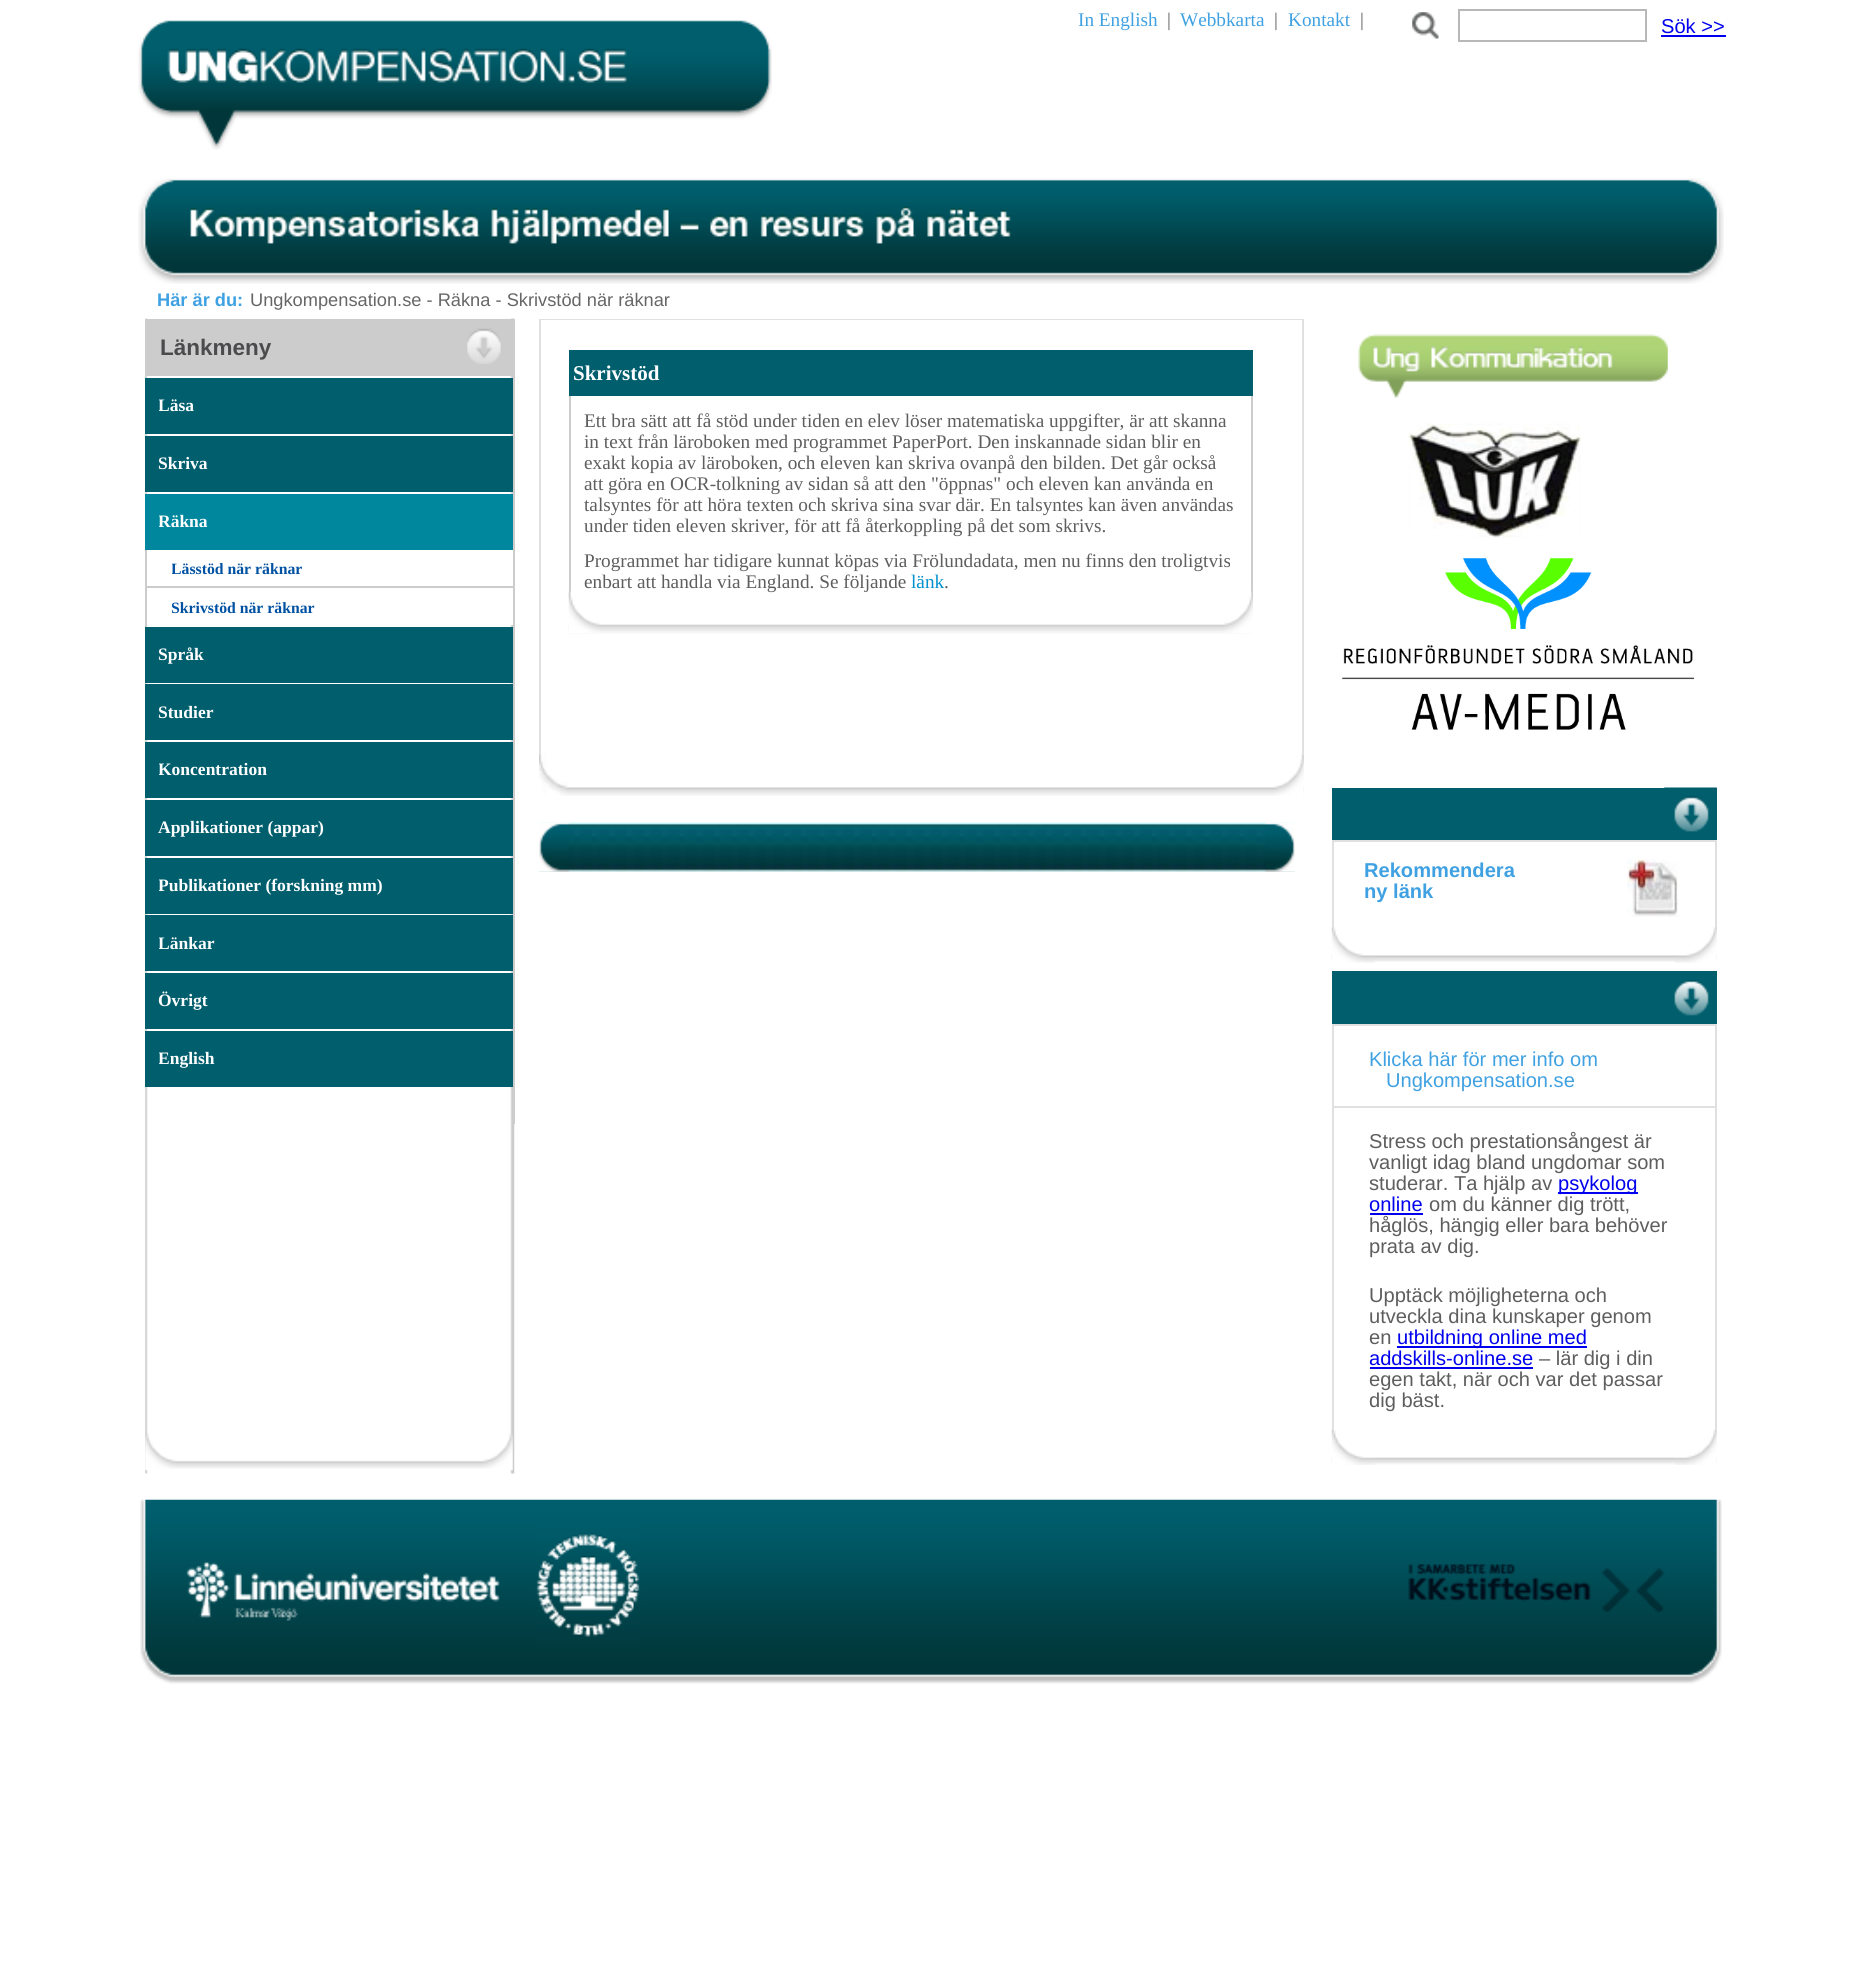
import math
import cairo


def use_color(cr, r, g, b):
  cr.set_source_rgb(r / 255, g / 255, b / 255)

def text(cr, x, y, s, family, size, color, bold=False, italic=False):
  cr.select_font_face(family, cairo.FONT_SLANT_ITALIC if italic else cairo.FONT_SLANT_NORMAL, cairo.FONT_WEIGHT_BOLD if bold else cairo.FONT_WEIGHT_NORMAL)
  cr.set_font_size(size)
  use_color(cr, *color)
  cr.move_to(x, y)
  cr.show_text(s)

def box(cr, x, y, w, h, *color):
  use_color(cr, *color)
  cr.rectangle(x, y, w, h)
  cr.fill()

def picture(cr, path, x, y, w, h):
  cr.save()
  cr.set_source_surface(cairo.ImageSurface.create_from_png(path), x, y)
  cr.rectangle(x, y, w, h)
  cr.fill()
  cr.restore()

def draw(cr):
  use_color(cr, 255, 255, 255)
  cr.paint()
  picture(cr, "img_01.png", 138, 20, 634, 130)
  picture(cr, "img_02.png", 1412, 12, 27, 27)
  cr.rectangle(1459, 10, 187, 31)
  use_color(cr, 184, 184, 184)
  cr.stroke()
  box(cr, 1661, 35, 65, 2, 0, 0, 238)
  picture(cr, "img_03.png", 138, 178, 1586, 106)
  picture(cr, "img_04.png", 145, 318, 370, 1156)
  box(cr, 145, 319, 367, 57, 204, 204, 204)
  picture(cr, "img_05.png", 467, 328, 34, 36)
  box(cr, 145, 378, 368, 56, 0, 94, 109)
  box(cr, 145, 436, 368, 56, 0, 94, 109)
  box(cr, 145, 494, 368, 56, 0, 135, 157)
  box(cr, 145, 550, 2, 77, 204, 204, 204)
  box(cr, 147, 550, 366, 36, 255, 255, 255)
  box(cr, 147, 586, 366, 2, 204, 204, 204)
  box(cr, 147, 588, 366, 37, 255, 255, 255)
  box(cr, 145, 627, 368, 56, 0, 94, 109)
  box(cr, 145, 684, 368, 56, 0, 94, 109)
  box(cr, 145, 742, 368, 56, 0, 94, 109)
  box(cr, 145, 800, 368, 56, 0, 94, 109)
  box(cr, 145, 858, 368, 56, 0, 94, 109)
  box(cr, 145, 915, 368, 56, 0, 94, 109)
  box(cr, 145, 973, 368, 56, 0, 94, 109)
  box(cr, 145, 1031, 368, 56, 0, 94, 109)
  box(cr, 514, 319, 1, 805, 204, 204, 204)
  picture(cr, "img_06.png", 568, 787, 736, 9)
  box(cr, 539, 319, 765, 435, 224, 224, 224)
  box(cr, 541, 320, 761, 434, 255, 255, 255)
  picture(cr, "img_07.png", 568, 624, 685, 10)
  box(cr, 569, 350, 684, 46, 0, 94, 109)
  box(cr, 1251, 396, 2, 196, 205, 205, 205)
  box(cr, 569, 396, 2, 196, 205, 205, 205)
  picture(cr, "img_09.png", 1223, 591, 30, 42)
  picture(cr, "img_10.png", 1274, 754, 30, 42)
  picture(cr, "img_11.png", 539, 754, 29, 42)
  picture(cr, "img_12.png", 539, 822, 756, 50)
  picture(cr, "img_13.png", 1265, 822, 30, 25)
  picture(cr, "img_14.png", 539, 822, 30, 25)
  picture(cr, "img_15.png", 1265, 847, 30, 25)
  picture(cr, "img_16.png", 539, 847, 30, 25)
  picture(cr, "img_17.png", 1358, 334, 310, 64)
  picture(cr, "img_18.png", 1408, 423, 173, 115)
  picture(cr, "img_19.png", 1342, 558, 352, 172)
  picture(cr, "img_20.png", 1331, 955, 386, 7)
  box(cr, 1332, 788, 385, 52, 0, 94, 109)
  picture(cr, "img_21.png", 1664, 787, 53, 45)
  box(cr, 1332, 840, 385, 88, 224, 224, 224)
  box(cr, 1334, 842, 381, 86, 255, 255, 255)
  picture(cr, "img_22.png", 1627, 859, 51, 58)
  picture(cr, "img_23.png", 1675, 927, 42, 36)
  picture(cr, "img_24.png", 1331, 927, 44, 36)
  picture(cr, "img_25.png", 1331, 1457, 386, 8)
  box(cr, 1332, 971, 385, 53, 0, 94, 109)
  picture(cr, "img_26.png", 1674, 980, 35, 36)
  box(cr, 1332, 1024, 385, 406, 224, 224, 224)
  box(cr, 1334, 1026, 381, 80, 255, 255, 255)
  box(cr, 1334, 1108, 381, 322, 255, 255, 255)
  box(cr, 1558, 1192, 80, 2, 0, 0, 238)
  box(cr, 1370, 1213, 53, 2, 0, 0, 238)
  box(cr, 1397, 1346, 190, 2, 0, 0, 238)
  box(cr, 1370, 1367, 163, 2, 0, 0, 238)
  picture(cr, "img_27.png", 1675, 1429, 42, 36)
  picture(cr, "img_28.png", 1331, 1430, 44, 35)
  picture(cr, "img_29.png", 145, 1433, 368, 37)
  picture(cr, "img_30.png", 140, 1499, 1582, 185)
  text(cr, 1078, 26, "In English", "Liberation Serif", 19.25, (63, 161, 226))
  text(cr, 1167, 26, "|", "Liberation Serif", 19.25, (94, 94, 94))
  text(cr, 1180, 26, "Webbkarta", "Liberation Serif", 19.25, (63, 161, 226))
  text(cr, 1274, 26, "|", "Liberation Serif", 19.25, (94, 94, 94))
  text(cr, 1288, 26, "Kontakt", "Liberation Serif", 19.25, (63, 161, 226))
  text(cr, 1360, 26, "|", "Liberation Serif", 19.25, (94, 94, 94))
  text(cr, 1661, 33, "Sök >>", "Liberation Sans", 20.1, (0, 0, 238))
  text(cr, 157, 306, "Här är du:", "Liberation Sans", 18.25, (63, 161, 226), bold=True)
  text(cr, 250, 306, "Ungkompensation.se - Räkna - Skrivstöd när räknar", "Liberation Sans", 18.25, (102, 102, 102))
  text(cr, 160, 355, "Länkmeny", "Liberation Sans", 22.5, (75, 75, 77), bold=True)
  cr.save()
  cr.rectangle(159, 385, 347, 42)
  cr.clip()
  text(cr, 158, 411, "Läsa", "Liberation Serif", 17.5, (255, 255, 255), bold=True)
  cr.restore()
  text(cr, 158, 469, "Skriva", "Liberation Serif", 17.5, (255, 255, 255), bold=True)
  cr.save()
  cr.rectangle(159, 501, 347, 42)
  cr.clip()
  text(cr, 158, 527, "Räkna", "Liberation Serif", 17.5, (255, 255, 255), bold=True)
  cr.restore()
  cr.save()
  cr.rectangle(172, 558, 329, 21)
  cr.clip()
  text(cr, 171, 574, "Lässtöd när räknar", "Liberation Serif", 15.75, (0, 81, 162), bold=True)
  cr.restore()
  cr.save()
  cr.rectangle(172, 597, 329, 21)
  cr.clip()
  text(cr, 171, 613, "Skrivstöd när räknar", "Liberation Serif", 15.75, (0, 81, 162), bold=True)
  cr.restore()
  text(cr, 158, 660, "Språk", "Liberation Serif", 17.5, (255, 255, 255), bold=True)
  text(cr, 158, 718, "Studier", "Liberation Serif", 17.5, (255, 255, 255), bold=True)
  cr.save()
  cr.rectangle(159, 749, 347, 42)
  cr.clip()
  text(cr, 158, 775, "Koncentration", "Liberation Serif", 17.5, (255, 255, 255), bold=True)
  cr.restore()
  text(cr, 158, 833, "Applikationer (appar)", "Liberation Serif", 17.5, (255, 255, 255), bold=True)
  cr.save()
  cr.rectangle(159, 865, 347, 42)
  cr.clip()
  text(cr, 158, 891, "Publikationer (forskning mm)", "Liberation Serif", 17.5, (255, 255, 255), bold=True)
  cr.restore()
  cr.save()
  cr.rectangle(159, 922, 347, 42)
  cr.clip()
  text(cr, 158, 949, "Länkar", "Liberation Serif", 17.5, (255, 255, 255), bold=True)
  cr.restore()
  text(cr, 158, 1006, "Övrigt", "Liberation Serif", 17.5, (255, 255, 255), bold=True)
  cr.save()
  cr.rectangle(159, 1038, 347, 42)
  cr.clip()
  text(cr, 158, 1064, "English", "Liberation Serif", 17.5, (255, 255, 255), bold=True)
  cr.restore()
  text(cr, 573, 380, "Skrivstöd", "Liberation Serif", 21, (255, 255, 255), bold=True)
  text(cr, 584, 427, "Ett bra sätt att få stöd under tiden en elev löser matematiska uppgifter, är att skanna", "Liberation Serif", 19.25, (94, 94, 94))
  text(cr, 584, 448, "in text från läroboken med programmet PaperPort. Den inskannade sidan blir en", "Liberation Serif", 19.25, (94, 94, 94))
  text(cr, 584, 469, "exakt kopia av läroboken, och eleven kan skriva ovanpå den bilden. Det går också", "Liberation Serif", 19.25, (94, 94, 94))
  text(cr, 584, 490, "att göra en OCR-tolkning av sidan så att den \"öppnas\" och eleven kan använda en", "Liberation Serif", 19.25, (94, 94, 94))
  text(cr, 584, 511, "talsyntes för att höra texten och skriva sina svar där. En talsyntes kan även användas", "Liberation Serif", 19.25, (94, 94, 94))
  text(cr, 584, 532, "under tiden eleven skriver, för att få återkoppling på det som skrivs.", "Liberation Serif", 19.25, (94, 94, 94))
  text(cr, 584, 567, "Programmet har tidigare kunnat köpas via Frölundadata, men nu finns den troligtvis", "Liberation Serif", 19.25, (94, 94, 94))
  text(cr, 584, 588, "enbart att handla via England. Se följande", "Liberation Serif", 19.25, (94, 94, 94))
  text(cr, 911, 588, "länk", "Liberation Serif", 19.25, (0, 144, 207))
  text(cr, 944, 588, ".", "Liberation Serif", 19.25, (94, 94, 94))
  picture(cr, "img_08.png", 568, 591, 32, 42)
  text(cr, 1364, 877, "Rekommendera", "Liberation Sans", 20.1, (63, 161, 226), bold=True)
  text(cr, 1364, 898, "ny länk", "Liberation Sans", 20.1, (63, 161, 226), bold=True)
  text(cr, 1369, 1066, "Klicka här för mer info om", "Liberation Sans", 20.1, (63, 161, 226))
  text(cr, 1386, 1087, "Ungkompensation.se", "Liberation Sans", 20.1, (63, 161, 226))
  text(cr, 1369, 1148, "Stress och prestationsångest är", "Liberation Sans", 20.1, (94, 94, 94))
  text(cr, 1369, 1169, "vanligt idag bland ungdomar som", "Liberation Sans", 20.1, (94, 94, 94))
  text(cr, 1369, 1190, "studerar. Ta hjälp av", "Liberation Sans", 20.1, (94, 94, 94))
  text(cr, 1558, 1190, "psykolog", "Liberation Sans", 20.1, (0, 0, 238))
  text(cr, 1369, 1211, "online", "Liberation Sans", 20.1, (0, 0, 238))
  text(cr, 1429, 1211, "om du känner dig trött,", "Liberation Sans", 20.1, (94, 94, 94))
  text(cr, 1369, 1232, "håglös, hängig eller bara behöver", "Liberation Sans", 20.1, (94, 94, 94))
  text(cr, 1369, 1253, "prata av dig.", "Liberation Sans", 20.1, (94, 94, 94))
  text(cr, 1369, 1302, "Upptäck möjligheterna och", "Liberation Sans", 20.1, (94, 94, 94))
  text(cr, 1369, 1323, "utveckla dina kunskaper genom", "Liberation Sans", 20.1, (94, 94, 94))
  text(cr, 1369, 1344, "en", "Liberation Sans", 20.1, (94, 94, 94))
  text(cr, 1397, 1344, "utbildning online med", "Liberation Sans", 20.1, (0, 0, 238))
  text(cr, 1369, 1365, "addskills-online.se", "Liberation Sans", 20.1, (0, 0, 238))
  text(cr, 1539, 1365, "– lär dig i din", "Liberation Sans", 20.1, (94, 94, 94))
  text(cr, 1369, 1386, "egen takt, när och var det passar", "Liberation Sans", 20.1, (94, 94, 94))
  text(cr, 1369, 1407, "dig bäst.", "Liberation Sans", 20.1, (94, 94, 94))


surface = cairo.ImageSurface(cairo.FORMAT_RGB24, 1859, 1974)
cr = cairo.Context(surface)
options = cairo.FontOptions()
options.set_hint_metrics(cairo.HINT_METRICS_OFF)
options.set_hint_style(cairo.HINT_STYLE_NONE)
cr.set_font_options(options)
cr.set_miter_limit(4)
draw(cr)
surface.write_to_png("out.png")
